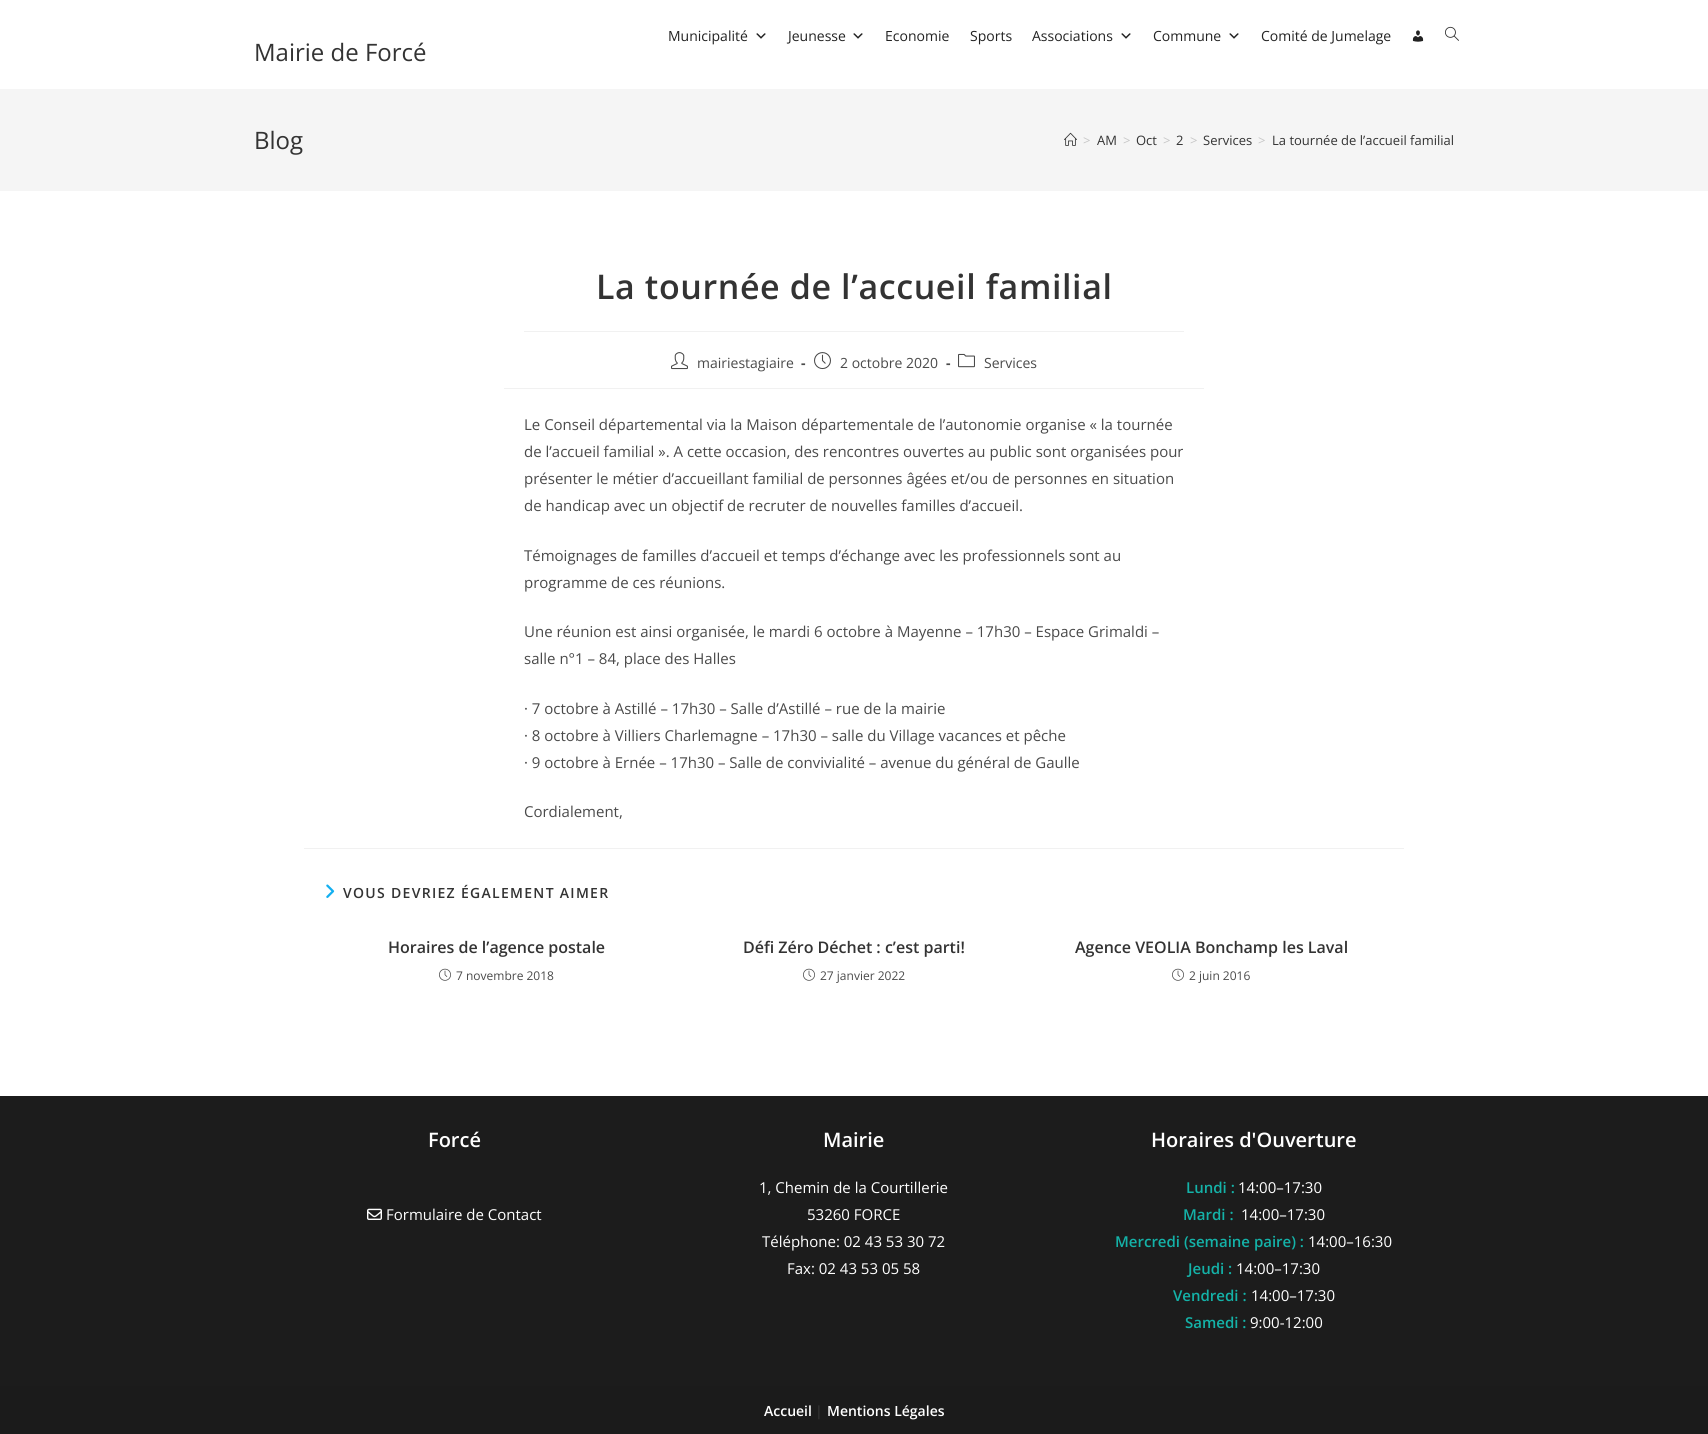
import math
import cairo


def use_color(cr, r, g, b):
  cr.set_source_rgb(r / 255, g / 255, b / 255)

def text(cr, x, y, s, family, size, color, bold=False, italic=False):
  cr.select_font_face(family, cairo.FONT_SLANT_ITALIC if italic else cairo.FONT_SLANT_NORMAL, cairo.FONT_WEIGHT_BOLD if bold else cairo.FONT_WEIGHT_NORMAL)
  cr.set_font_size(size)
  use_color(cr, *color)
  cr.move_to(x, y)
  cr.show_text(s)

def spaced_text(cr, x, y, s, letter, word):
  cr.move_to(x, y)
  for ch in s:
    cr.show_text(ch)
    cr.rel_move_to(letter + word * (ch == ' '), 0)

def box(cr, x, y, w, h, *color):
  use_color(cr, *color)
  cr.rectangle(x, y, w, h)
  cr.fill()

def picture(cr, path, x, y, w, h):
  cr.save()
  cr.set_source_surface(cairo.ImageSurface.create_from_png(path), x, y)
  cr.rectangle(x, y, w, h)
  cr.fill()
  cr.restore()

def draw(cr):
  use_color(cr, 255, 255, 255)
  cr.paint()
  picture(cr, "img_01.png", 756, 33, 10, 6)
  picture(cr, "img_01.png", 853, 33, 10, 6)
  picture(cr, "img_01.png", 1121, 33, 10, 6)
  picture(cr, "img_01.png", 1229, 33, 10, 6)
  picture(cr, "img_02.png", 1412, 30, 12, 12)
  picture(cr, "img_03.png", 1445, 26, 14, 15)
  box(cr, 0, 89, 1708, 102, 245, 245, 245)
  picture(cr, "img_04.png", 1064, 132, 13, 14)
  box(cr, 524, 331, 660, 1, 241, 241, 241)
  box(cr, 504, 388, 700, 1, 241, 241, 241)
  picture(cr, "img_05.png", 671, 352, 17, 18)
  picture(cr, "img_06.png", 814, 352, 17, 18)
  picture(cr, "img_07.png", 958, 353, 17, 15)
  box(cr, 304, 848, 1100, 1, 241, 241, 241)
  picture(cr, "img_08.png", 326, 884, 9, 14)
  picture(cr, "img_09.png", 439, 968, 12, 13)
  picture(cr, "img_09.png", 803, 968, 12, 13)
  picture(cr, "img_09.png", 1172, 968, 12, 13)
  box(cr, 0, 1096, 1708, 290, 28, 28, 28)
  picture(cr, "img_10.png", 367, 1208, 15, 12)
  box(cr, 0, 1386, 1708, 48, 27, 27, 27)
  text(cr, 668, 41, "Municipalité", "Open Sans", 14, (34, 34, 34))
  text(cr, 788, 41, "Jeunesse", "Open Sans", 14, (34, 34, 34))
  text(cr, 885, 41, "Economie", "Open Sans", 14, (34, 34, 34))
  text(cr, 970, 41, "Sports", "Open Sans", 14, (34, 34, 34))
  text(cr, 1032, 41, "Associations", "Open Sans", 14, (34, 34, 34))
  text(cr, 1153, 41, "Commune", "Open Sans", 14, (34, 34, 34))
  text(cr, 1261, 41, "Comité de Jumelage", "Open Sans", 14, (34, 34, 34))
  text(cr, 254, 61, "Mairie de Forcé", "Open Sans", 24, (51, 51, 51))
  text(cr, 254, 149, "Blog", "Open Sans", 24, (51, 51, 51))
  text(cr, 1083, 145, ">", "Open Sans", 13, (198, 198, 198))
  text(cr, 1097, 145, "AM", "Open Sans", 13, (51, 51, 51))
  text(cr, 1123, 145, ">", "Open Sans", 13, (198, 198, 198))
  text(cr, 1136, 145, "Oct", "Open Sans", 13, (51, 51, 51))
  text(cr, 1163, 145, ">", "Open Sans", 13, (198, 198, 198))
  text(cr, 1176, 145, "2", "Open Sans", 13, (51, 51, 51))
  text(cr, 1190, 145, ">", "Open Sans", 13, (198, 198, 198))
  text(cr, 1203, 145, "Services", "Open Sans", 13, (51, 51, 51))
  text(cr, 1258, 145, ">", "Open Sans", 13, (198, 198, 198))
  text(cr, 1272, 145, "La tournée de l’accueil familial", "Open Sans", 13, (51, 51, 51))
  cr.select_font_face("Open Sans SemiBold")
  cr.set_font_size(34)
  spaced_text(cr, 596, 299, "La tournée de l’accueil familial", 0.6, 0)
  text(cr, 697, 368, "mairiestagiaire", "Open Sans", 14, (74, 74, 74))
  text(cr, 801, 368, "-", "Open Sans", 14, (74, 74, 74), bold=True)
  text(cr, 840, 368, "2 octobre 2020", "Open Sans", 14, (74, 74, 74))
  text(cr, 946, 368, "-", "Open Sans", 14, (74, 74, 74), bold=True)
  text(cr, 984, 368, "Services", "Open Sans", 14, (74, 74, 74))
  text(cr, 524, 430, "Le Conseil départemental via la Maison départementale de l’autonomie organise « la tournée", "Open Sans", 15, (74, 74, 74))
  text(cr, 524, 457, "de l’accueil familial ». A cette occasion, des rencontres ouvertes au public sont organisées pour", "Open Sans", 15, (74, 74, 74))
  text(cr, 524, 484, "présenter le métier d’accueillant familial de personnes âgées et/ou de personnes en situation", "Open Sans", 15, (74, 74, 74))
  text(cr, 524, 511, "de handicap avec un objectif de recruter de nouvelles familles d’accueil.", "Open Sans", 15, (74, 74, 74))
  text(cr, 524, 561, "Témoignages de familles d’accueil et temps d’échange avec les professionnels sont au", "Open Sans", 15, (74, 74, 74))
  text(cr, 524, 588, "programme de ces réunions.", "Open Sans", 15, (74, 74, 74))
  text(cr, 524, 637, "Une réunion est ainsi organisée, le mardi 6 octobre à Mayenne – 17h30 – Espace Grimaldi –", "Open Sans", 15, (74, 74, 74))
  text(cr, 524, 664, "salle n°1 – 84, place des Halles", "Open Sans", 15, (74, 74, 74))
  text(cr, 524, 714, "· 7 octobre à Astillé – 17h30 – Salle d’Astillé – rue de la mairie", "Open Sans", 15, (74, 74, 74))
  text(cr, 524, 741, "· 8 octobre à Villiers Charlemagne – 17h30 – salle du Village vacances et pêche", "Open Sans", 15, (74, 74, 74))
  text(cr, 524, 768, "· 9 octobre à Ernée – 17h30 – Salle de convivialité – avenue du général de Gaulle", "Open Sans", 15, (74, 74, 74))
  text(cr, 524, 817, "Cordialement,", "Open Sans", 15, (74, 74, 74))
  cr.select_font_face("Open Sans SemiBold")
  cr.set_font_size(14)
  use_color(cr, 51, 51, 51)
  spaced_text(cr, 343, 898, "VOUS DEVRIEZ ÉGALEMENT AIMER", 1.3, 0)
  text(cr, 388, 953, "Horaires de l’agence postale", "Open Sans SemiBold", 16, (51, 51, 51))
  text(cr, 456, 980, "7 novembre 2018", "Open Sans", 12, (74, 74, 74))
  text(cr, 743, 953, "Défi Zéro Déchet : c’est parti!", "Open Sans SemiBold", 16, (51, 51, 51))
  text(cr, 820, 980, "27 janvier 2022", "Open Sans", 12, (74, 74, 74))
  text(cr, 1075, 953, "Agence VEOLIA Bonchamp les Laval", "Open Sans SemiBold", 16, (51, 51, 51))
  text(cr, 1189, 980, "2 juin 2016", "Open Sans", 12, (74, 74, 74))
  text(cr, 428, 1147, "Forcé", "Open Sans SemiBold", 20, (255, 255, 255))
  text(cr, 386, 1220, "Formulaire de Contact", "Open Sans", 15, (255, 255, 255))
  text(cr, 823, 1147, "Mairie", "Open Sans SemiBold", 20, (255, 255, 255))
  text(cr, 759, 1193, "1, Chemin de la Courtillerie", "Open Sans", 15, (255, 255, 255))
  text(cr, 807, 1220, "53260 FORCE", "Open Sans", 15, (255, 255, 255))
  text(cr, 762, 1247, "Téléphone: 02 43 53 30 72", "Open Sans", 15, (255, 255, 255))
  text(cr, 787, 1274, "Fax: 02 43 53 05 58", "Open Sans", 15, (255, 255, 255))
  text(cr, 1151, 1147, "Horaires d'Ouverture", "Open Sans SemiBold", 20, (255, 255, 255))
  text(cr, 1186, 1193, "Lundi :", "Open Sans SemiBold", 15, (20, 178, 168))
  text(cr, 1238, 1193, "14:00–17:30", "Open Sans", 15, (255, 255, 255))
  text(cr, 1183, 1220, "Mardi :", "Open Sans SemiBold", 15, (20, 178, 168))
  text(cr, 1241, 1220, "14:00–17:30", "Open Sans", 15, (255, 255, 255))
  text(cr, 1115, 1247, "Mercredi (semaine paire) :", "Open Sans SemiBold", 15, (20, 178, 168))
  text(cr, 1308, 1247, "14:00–16:30", "Open Sans", 15, (255, 255, 255))
  text(cr, 1188, 1274, "Jeudi :", "Open Sans SemiBold", 15, (20, 178, 168))
  text(cr, 1236, 1274, "14:00–17:30", "Open Sans", 15, (255, 255, 255))
  text(cr, 1173, 1301, "Vendredi :", "Open Sans SemiBold", 15, (20, 178, 168))
  text(cr, 1251, 1301, "14:00–17:30", "Open Sans", 15, (255, 255, 255))
  text(cr, 1185, 1328, "Samedi :", "Open Sans SemiBold", 15, (20, 178, 168))
  text(cr, 1250, 1328, "9:00-12:00", "Open Sans", 15, (255, 255, 255))
  text(cr, 764, 1416, "Accueil", "Open Sans SemiBold", 14, (255, 255, 255))
  text(cr, 815, 1416, "|", "Open Sans SemiBold", 14, (51, 51, 51))
  text(cr, 827, 1416, "Mentions Légales", "Open Sans SemiBold", 14, (255, 255, 255))


surface = cairo.ImageSurface(cairo.FORMAT_RGB24, 1708, 1434)
cr = cairo.Context(surface)
options = cairo.FontOptions()
options.set_hint_metrics(cairo.HINT_METRICS_OFF)
options.set_hint_style(cairo.HINT_STYLE_NONE)
cr.set_font_options(options)
cr.set_miter_limit(4)
draw(cr)
surface.write_to_png("out.png")
